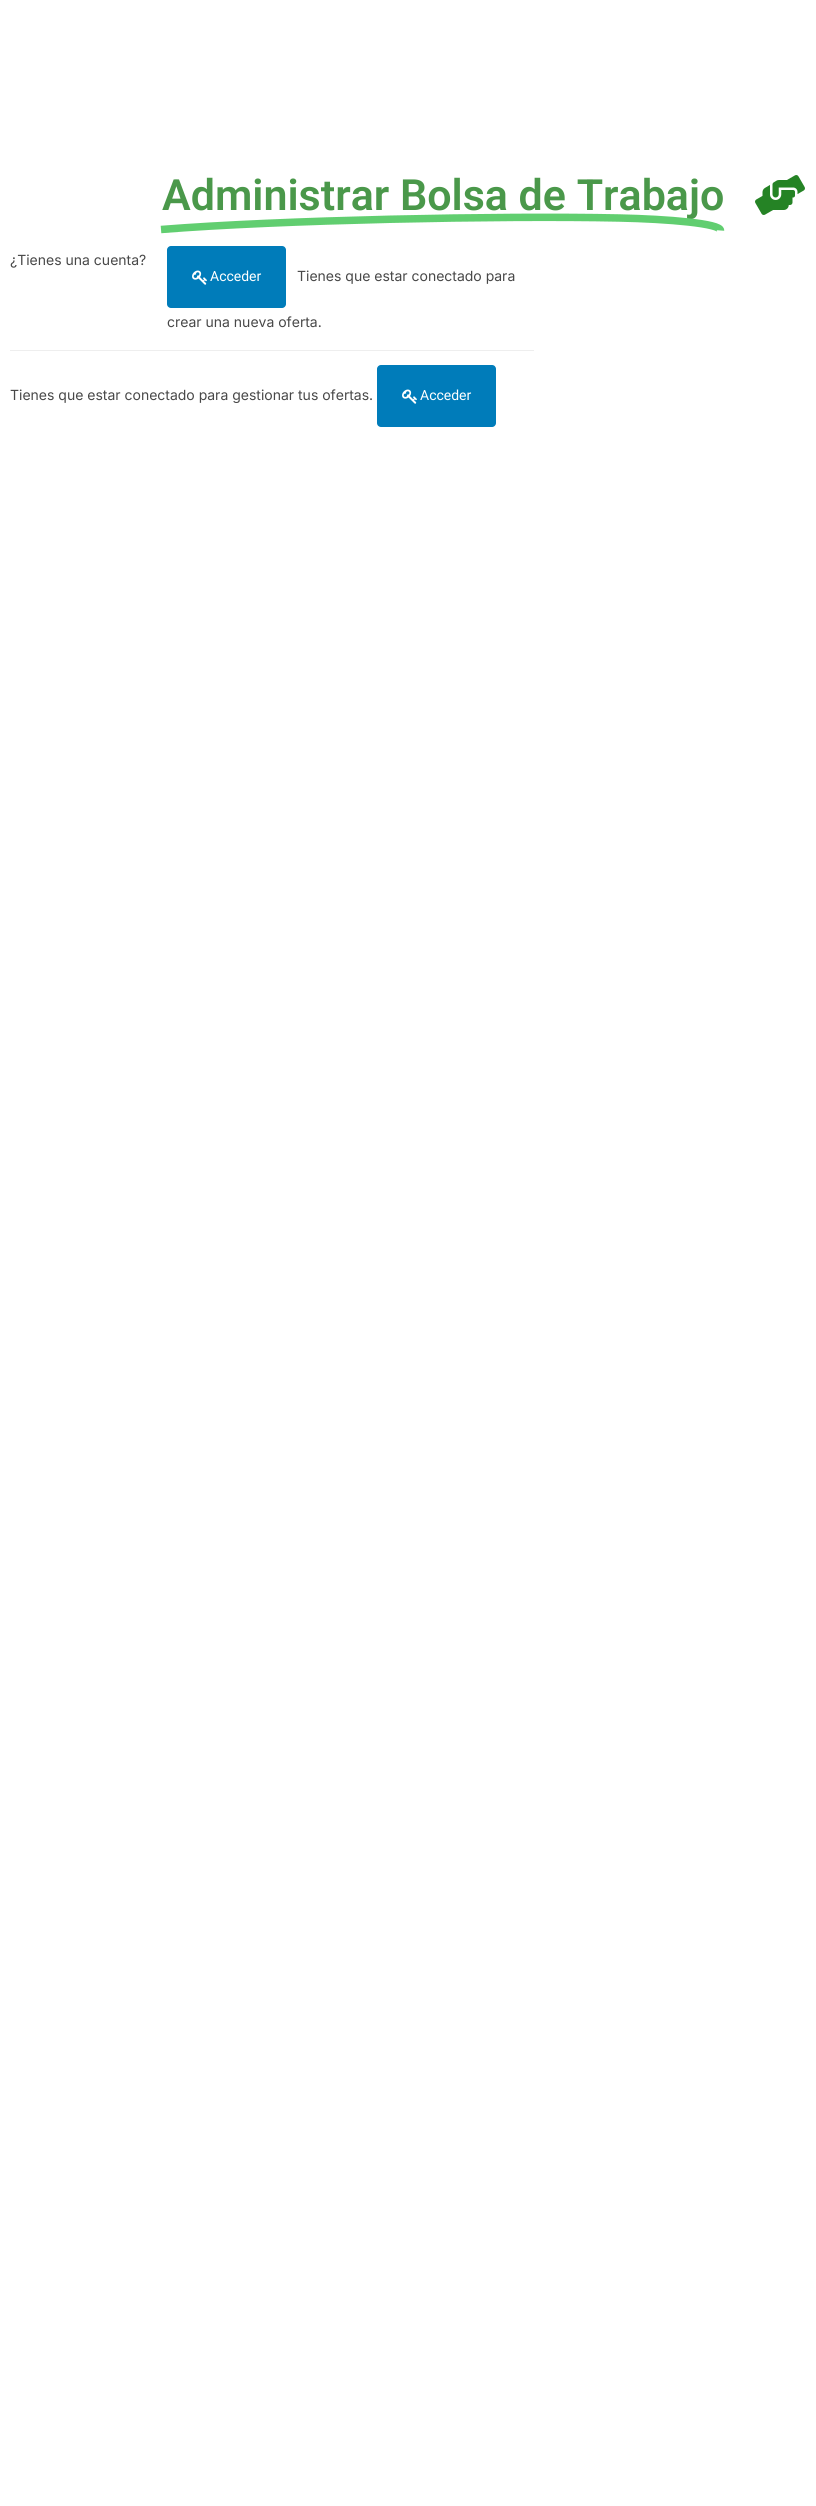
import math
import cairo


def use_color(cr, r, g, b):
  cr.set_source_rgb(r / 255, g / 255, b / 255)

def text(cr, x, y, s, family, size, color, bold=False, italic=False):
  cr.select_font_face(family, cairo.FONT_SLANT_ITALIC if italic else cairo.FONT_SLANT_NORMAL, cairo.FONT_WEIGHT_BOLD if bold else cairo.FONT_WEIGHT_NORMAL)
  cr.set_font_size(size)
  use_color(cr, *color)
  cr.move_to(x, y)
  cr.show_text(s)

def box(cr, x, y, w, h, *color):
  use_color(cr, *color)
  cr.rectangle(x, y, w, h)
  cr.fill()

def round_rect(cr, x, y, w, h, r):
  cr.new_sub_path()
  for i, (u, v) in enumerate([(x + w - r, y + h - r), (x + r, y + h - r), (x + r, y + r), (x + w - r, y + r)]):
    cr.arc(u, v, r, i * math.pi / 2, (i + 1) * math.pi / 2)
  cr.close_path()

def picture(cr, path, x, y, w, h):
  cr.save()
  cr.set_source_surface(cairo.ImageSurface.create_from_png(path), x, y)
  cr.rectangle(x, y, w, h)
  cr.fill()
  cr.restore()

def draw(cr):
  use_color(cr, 255, 255, 255)
  cr.paint()
  picture(cr, "img_01.png", 755, 175, 50, 40)
  box(cr, 10, 350, 524, 1, 238, 238, 238)
  use_color(cr, 0, 124, 186)
  round_rect(cr, 167, 246, 119, 62, 4)
  cr.fill()
  picture(cr, "img_02.png", 192, 270, 15, 15)
  round_rect(cr, 377, 365, 119, 62, 4)
  cr.fill()
  picture(cr, "img_02.png", 402, 389, 15, 15)
  text(cr, 162, 210, "Administrar Bolsa de Trabajo", "Roboto SemiBold", 43, (74, 152, 74))
  cr.new_path()
  cr.move_to(161, 229.5)
  cr.curve_to(279, 220, 501, 215.5, 619, 218)
  cr.curve_to(668, 219, 721, 223.5, 720.5, 230.5)
  use_color(cr, 97, 206, 112)
  cr.set_line_width(7.5)
  cr.stroke()
  text(cr, 10, 265, "¿Tienes una cuenta?", "Inter", 14, (72, 72, 72))
  text(cr, 210, 281, "Acceder", "Roboto", 14, (255, 255, 255))
  text(cr, 297, 281, "Tienes que estar conectado para", "Inter", 14, (72, 72, 72))
  text(cr, 167, 327, "crear una nueva oferta.", "Inter", 14, (72, 72, 72))
  text(cr, 10, 400, "Tienes que estar conectado para gestionar tus ofertas.", "Inter", 14, (72, 72, 72))
  text(cr, 420, 400, "Acceder", "Roboto", 14, (255, 255, 255))


surface = cairo.ImageSurface(cairo.FORMAT_RGB24, 816, 2506)
cr = cairo.Context(surface)
options = cairo.FontOptions()
options.set_hint_metrics(cairo.HINT_METRICS_OFF)
options.set_hint_style(cairo.HINT_STYLE_NONE)
cr.set_font_options(options)
cr.set_miter_limit(4)
draw(cr)
surface.write_to_png("out.png")
